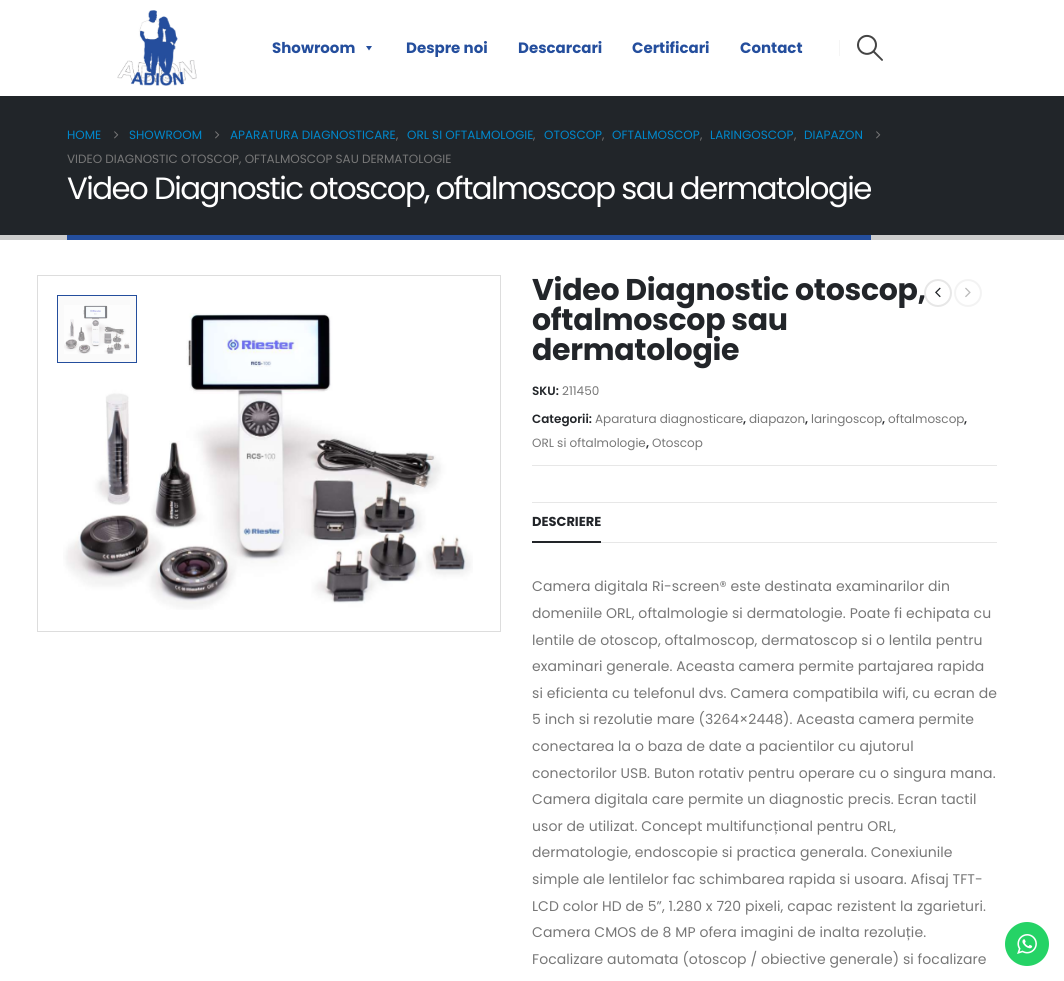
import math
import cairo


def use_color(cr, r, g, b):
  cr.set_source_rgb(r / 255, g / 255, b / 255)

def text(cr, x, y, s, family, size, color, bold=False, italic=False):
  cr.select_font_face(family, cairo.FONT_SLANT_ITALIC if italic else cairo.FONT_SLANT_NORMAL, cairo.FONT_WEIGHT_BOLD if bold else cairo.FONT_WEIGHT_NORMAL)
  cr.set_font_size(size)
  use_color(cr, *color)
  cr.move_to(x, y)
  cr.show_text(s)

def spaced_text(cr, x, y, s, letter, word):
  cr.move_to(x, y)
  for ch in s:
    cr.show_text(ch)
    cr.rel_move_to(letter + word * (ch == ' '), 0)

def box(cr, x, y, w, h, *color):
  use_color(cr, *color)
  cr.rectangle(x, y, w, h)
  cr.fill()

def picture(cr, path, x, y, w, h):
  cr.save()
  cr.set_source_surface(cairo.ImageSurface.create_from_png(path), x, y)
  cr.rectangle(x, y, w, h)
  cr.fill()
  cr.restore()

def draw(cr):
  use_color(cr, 255, 255, 255)
  cr.paint()
  picture(cr, "img_01.png", 117, 10, 80, 76)
  use_color(cr, 36, 78, 157)
  cr.new_path()
  cr.move_to(372, 46)
  cr.line_to(369, 50.5)
  cr.line_to(366, 46)
  cr.close_path()
  cr.fill()
  box(cr, 839, 40, 1, 16, 245, 245, 245)
  picture(cr, "img_02.png", 857, 34, 26, 27)
  box(cr, 0, 96, 1064, 139, 33, 37, 41)
  box(cr, 0, 235, 1064, 5, 204, 204, 204)
  picture(cr, "img_03.png", 114, 131, 5, 8)
  picture(cr, "img_03.png", 215, 131, 5, 8)
  picture(cr, "img_03.png", 876, 131, 5, 8)
  box(cr, 67, 235, 804, 5, 36, 78, 157)
  cr.rectangle(37.5, 275.5, 463, 356)
  use_color(cr, 221, 221, 221)
  cr.set_line_width(1)
  cr.stroke()
  picture(cr, "img_04.png", 63, 313, 410, 297)
  use_color(cr, 250, 250, 250)
  cr.rectangle(57.5, 295.5, 79, 67)
  cr.fill_preserve()
  use_color(cr, 36, 78, 157)
  cr.stroke()
  picture(cr, "img_05.png", 64, 305, 66, 49)
  cr.arc(968, 293, 13, 0, 2 * math.pi)
  use_color(cr, 243, 243, 243)
  cr.set_line_width(2)
  cr.stroke()
  picture(cr, "img_07.png", 965, 287, 6, 11)
  box(cr, 532, 465, 465, 1, 231, 231, 231)
  box(cr, 532, 502, 465, 1, 231, 231, 231)
  box(cr, 532, 541, 69, 2, 34, 37, 41)
  box(cr, 601, 542, 396, 1, 231, 231, 231)
  use_color(cr, 37, 211, 102)
  cr.arc(1027, 944, 22, 0, 2 * math.pi)
  cr.fill()
  picture(cr, "img_08.png", 1017, 934, 20, 20)
  text(cr, 272, 53, "Showroom", "Poppins", 15, (36, 78, 157), bold=True)
  text(cr, 406, 53, "Despre noi", "Poppins", 15, (36, 78, 157), bold=True)
  text(cr, 518, 53, "Descarcari", "Poppins", 15, (36, 78, 157), bold=True)
  text(cr, 632, 53, "Certificari", "Poppins", 15, (36, 78, 157), bold=True)
  text(cr, 740, 53, "Contact", "Poppins", 15, (36, 78, 157), bold=True)
  text(cr, 67, 139, "HOME", "Poppins", 12, (0, 136, 204))
  text(cr, 129, 139, "SHOWROOM", "Poppins", 12, (0, 136, 204))
  text(cr, 230, 139, "APARATURA DIAGNOSTICARE", "Poppins", 12, (0, 136, 204))
  text(cr, 396, 139, ",", "Poppins", 12, (119, 119, 119))
  text(cr, 407, 139, "ORL SI OFTALMOLOGIE", "Poppins", 12, (0, 136, 204))
  text(cr, 533, 139, ",", "Poppins", 12, (119, 119, 119))
  text(cr, 544, 139, "OTOSCOP", "Poppins", 12, (0, 136, 204))
  text(cr, 602, 139, ",", "Poppins", 12, (119, 119, 119))
  text(cr, 612, 139, "OFTALMOSCOP", "Poppins", 12, (0, 136, 204))
  text(cr, 700, 139, ",", "Poppins", 12, (119, 119, 119))
  text(cr, 710, 139, "LARINGOSCOP", "Poppins", 12, (0, 136, 204))
  text(cr, 794, 139, ",", "Poppins", 12, (119, 119, 119))
  text(cr, 804, 139, "DIAPAZON", "Poppins", 12, (0, 136, 204))
  text(cr, 67, 163, "VIDEO DIAGNOSTIC OTOSCOP, OFTALMOSCOP SAU DERMATOLOGIE", "Poppins", 12, (119, 119, 119))
  cr.set_font_size(30.8)
  use_color(cr, 255, 255, 255)
  spaced_text(cr, 67, 199, "Video Diagnostic otoscop, oftalmoscop sau dermatologie", -1.55, 0)
  cr.select_font_face("Poppins", cairo.FONT_SLANT_NORMAL, cairo.FONT_WEIGHT_BOLD)
  cr.set_font_size(30)
  use_color(cr, 34, 37, 41)
  spaced_text(cr, 532, 300, "Video Diagnostic otoscop,", -0.3, 0)
  spaced_text(cr, 532, 330, "oftalmoscop sau", -0.3, 0)
  spaced_text(cr, 532, 360, "dermatologie", -0.3, 0)
  cr.new_path()
  cr.arc(938, 293, 13, 0, 2 * math.pi)
  use_color(cr, 231, 231, 231)
  cr.stroke()
  picture(cr, "img_06.png", 935, 287, 6, 11)
  text(cr, 532, 395, "SKU:", "Poppins SemiBold", 12, (34, 37, 41))
  text(cr, 562, 395, "211450", "Poppins", 12, (119, 119, 119))
  text(cr, 532, 423, "Categorii:", "Poppins SemiBold", 12, (34, 37, 41))
  text(cr, 595, 423, "Aparatura diagnosticare", "Poppins", 12, (119, 119, 119))
  text(cr, 743, 423, ",", "Poppins SemiBold", 12, (34, 37, 41))
  text(cr, 749, 423, "diapazon", "Poppins", 12, (119, 119, 119))
  text(cr, 805, 423, ",", "Poppins SemiBold", 12, (34, 37, 41))
  text(cr, 811, 423, "laringoscop", "Poppins", 12, (119, 119, 119))
  text(cr, 882, 423, ",", "Poppins SemiBold", 12, (34, 37, 41))
  text(cr, 888, 423, "oftalmoscop", "Poppins", 12, (119, 119, 119))
  text(cr, 964, 423, ",", "Poppins SemiBold", 12, (34, 37, 41))
  text(cr, 532, 447, "ORL si oftalmologie", "Poppins", 12, (119, 119, 119))
  text(cr, 646, 447, ",", "Poppins SemiBold", 12, (34, 37, 41))
  text(cr, 652, 447, "Otoscop", "Poppins", 12, (119, 119, 119))
  text(cr, 532, 526, "DESCRIERE", "Poppins", 13, (34, 37, 41), bold=True)
  cr.select_font_face("Poppins")
  cr.set_font_size(14)
  use_color(cr, 119, 119, 119)
  spaced_text(cr, 532, 591, "Camera digitala Ri-screen® este destinata examinarilor din", 0.07, 0)
  spaced_text(cr, 532, 618, "domeniile ORL, oftalmologie si dermatologie. Poate fi echipata cu", 0.07, 0)
  spaced_text(cr, 532, 645, "lentile de otoscop, oftalmoscop, dermatoscop si o lentila pentru", 0.07, 0)
  spaced_text(cr, 532, 671, "examinari generale. Aceasta camera permite partajarea rapida", 0.07, 0)
  spaced_text(cr, 532, 698, "si eficienta cu telefonul dvs. Camera compatibila wifi, cu ecran de", 0.07, 0)
  spaced_text(cr, 532, 724, "5 inch si rezolutie mare (3264×2448). Aceasta camera permite", 0.07, 0)
  spaced_text(cr, 532, 751, "conectarea la o baza de date a pacientilor cu ajutorul", 0.07, 0)
  spaced_text(cr, 532, 778, "conectorilor USB. Buton rotativ pentru operare cu o singura mana.", 0.07, 0)
  spaced_text(cr, 532, 804, "Camera digitala care permite un diagnostic precis. Ecran tactil", 0.07, 0)
  spaced_text(cr, 532, 831, "usor de utilizat. Concept multifuncțional pentru ORL,", 0.07, 0)
  spaced_text(cr, 532, 857, "dermatologie, endoscopie si practica generala. Conexiunile", 0.07, 0)
  spaced_text(cr, 532, 884, "simple ale lentilelor fac schimbarea rapida si usoara. Afisaj TFT-", 0.07, 0)
  spaced_text(cr, 532, 911, "LCD color HD de 5”, 1.280 x 720 pixeli, capac rezistent la zgarieturi.", 0.07, 0)
  spaced_text(cr, 532, 937, "Camera CMOS de 8 MP ofera imagini de inalta rezoluție.", 0.07, 0)
  spaced_text(cr, 532, 964, "Focalizare automata (otoscop / obiective generale) si focalizare", 0.07, 0)


surface = cairo.ImageSurface(cairo.FORMAT_RGB24, 1064, 981)
cr = cairo.Context(surface)
options = cairo.FontOptions()
options.set_hint_metrics(cairo.HINT_METRICS_OFF)
options.set_hint_style(cairo.HINT_STYLE_NONE)
cr.set_font_options(options)
cr.set_miter_limit(4)
draw(cr)
surface.write_to_png("out.png")
